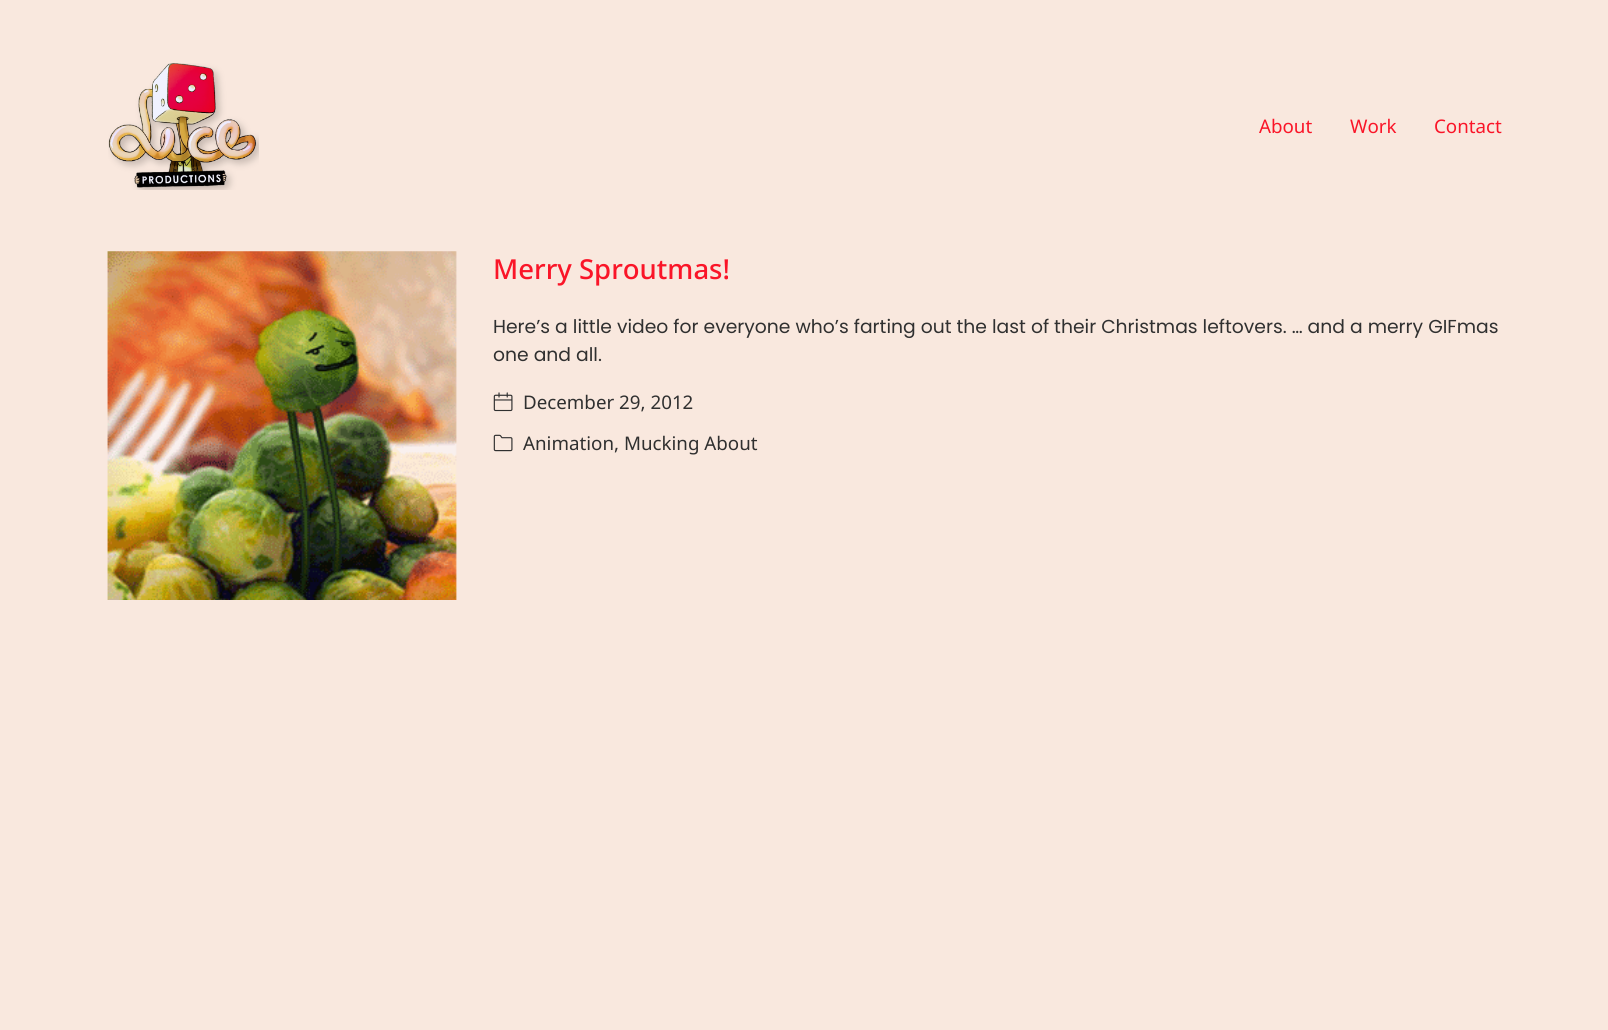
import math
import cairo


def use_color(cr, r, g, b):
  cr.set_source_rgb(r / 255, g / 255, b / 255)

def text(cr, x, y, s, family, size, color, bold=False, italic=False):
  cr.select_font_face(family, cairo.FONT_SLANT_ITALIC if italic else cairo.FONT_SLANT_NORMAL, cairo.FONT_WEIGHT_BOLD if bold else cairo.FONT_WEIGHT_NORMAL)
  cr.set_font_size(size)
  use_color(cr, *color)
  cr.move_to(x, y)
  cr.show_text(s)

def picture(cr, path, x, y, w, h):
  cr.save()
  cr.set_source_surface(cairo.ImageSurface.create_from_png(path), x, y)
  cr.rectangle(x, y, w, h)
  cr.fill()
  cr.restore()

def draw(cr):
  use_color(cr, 249, 232, 222)
  cr.paint()
  picture(cr, "img_01.png", 108, 63, 151, 127)
  picture(cr, "img_02.png", 107, 251, 350, 349)
  picture(cr, "img_03.png", 493, 392, 20, 20)
  picture(cr, "img_04.png", 493, 434, 20, 18)
  text(cr, 1259, 133, "About", "Noto Sans", 18.75, (250, 21, 40))
  text(cr, 1350, 133, "Work", "Noto Sans", 18.75, (250, 21, 40))
  text(cr, 1434, 133, "Contact", "Noto Sans", 18.75, (250, 21, 40))
  text(cr, 493, 279, "Merry Sproutmas!", "Noto Sans Medium", 27.5, (250, 21, 40))
  text(cr, 493, 333, "Here’s a little video for everyone who’s farting out the last of their Christmas leftovers. … and a merry GIFmas", "Poppins", 18.75, (48, 48, 48))
  text(cr, 493, 361, "one and all.", "Poppins", 18.75, (48, 48, 48))
  text(cr, 523, 409, "December 29, 2012", "Noto Sans", 18.75, (48, 48, 48))
  text(cr, 523, 450, "Animation, Mucking About", "Noto Sans", 18.75, (48, 48, 48))


surface = cairo.ImageSurface(cairo.FORMAT_RGB24, 1608, 1030)
cr = cairo.Context(surface)
options = cairo.FontOptions()
options.set_hint_metrics(cairo.HINT_METRICS_OFF)
options.set_hint_style(cairo.HINT_STYLE_NONE)
cr.set_font_options(options)
cr.set_miter_limit(4)
draw(cr)
surface.write_to_png("out.png")
